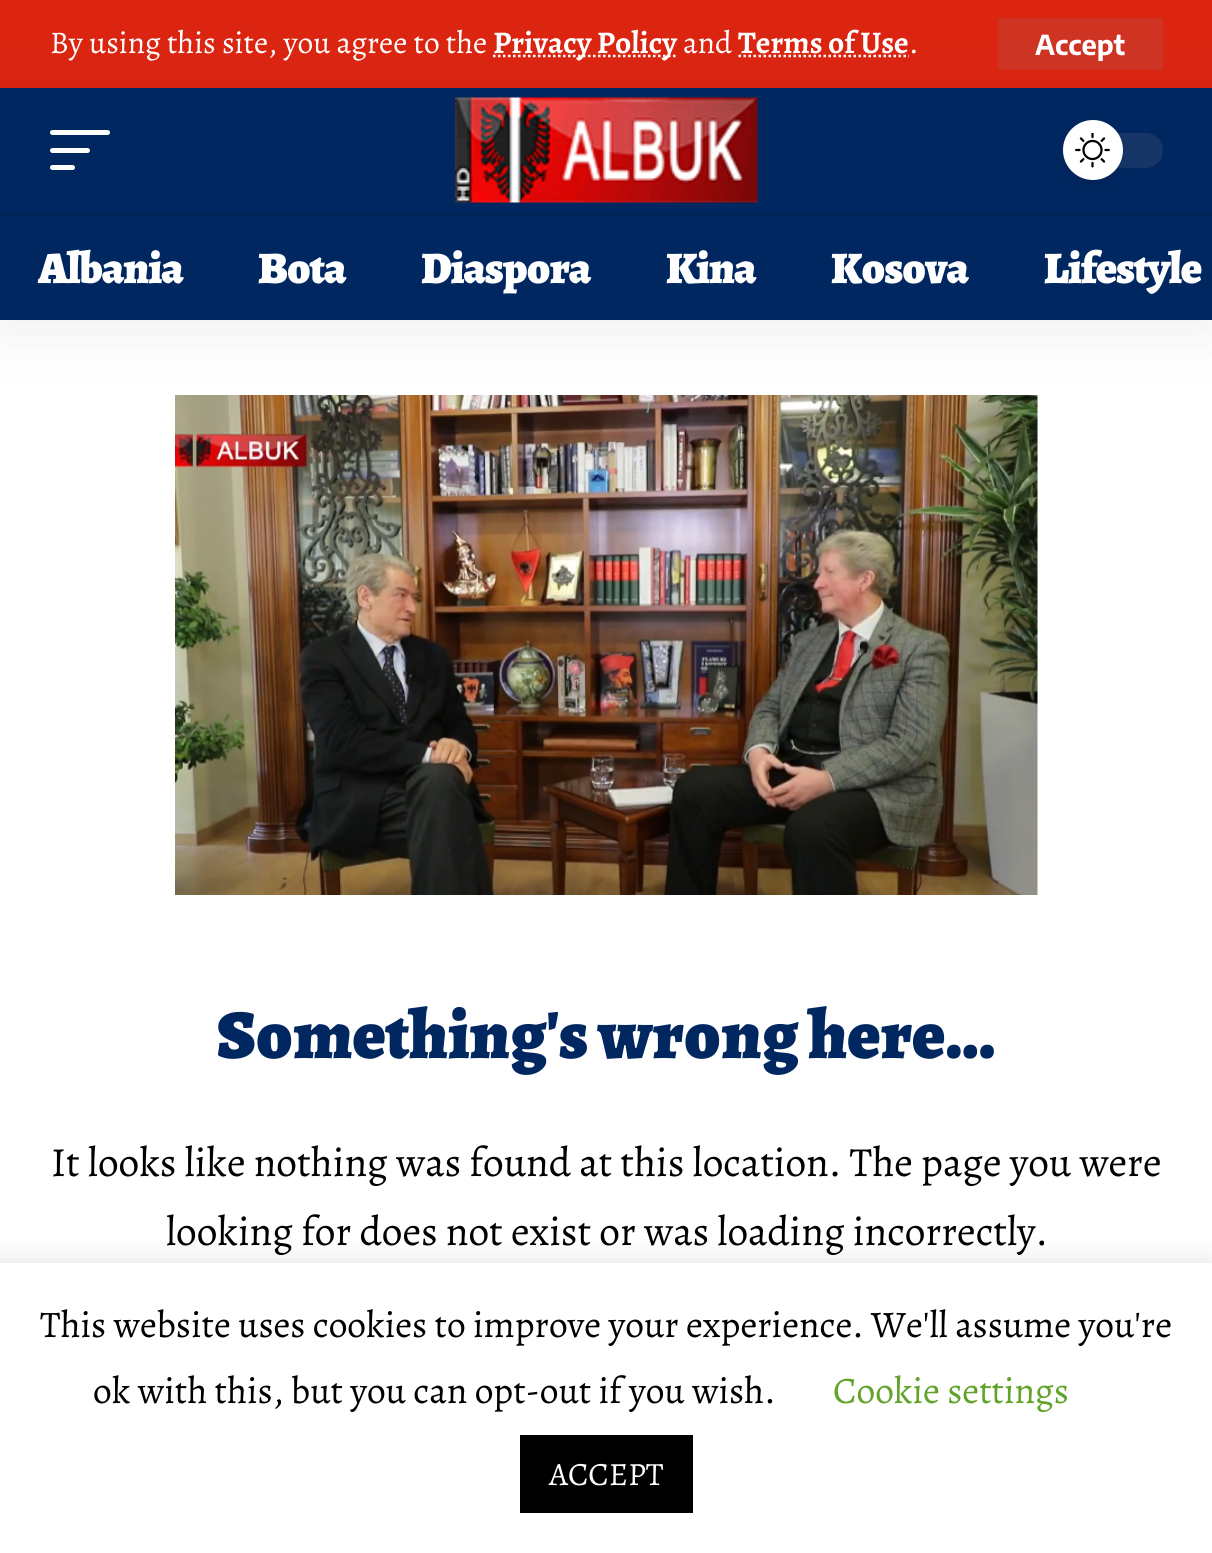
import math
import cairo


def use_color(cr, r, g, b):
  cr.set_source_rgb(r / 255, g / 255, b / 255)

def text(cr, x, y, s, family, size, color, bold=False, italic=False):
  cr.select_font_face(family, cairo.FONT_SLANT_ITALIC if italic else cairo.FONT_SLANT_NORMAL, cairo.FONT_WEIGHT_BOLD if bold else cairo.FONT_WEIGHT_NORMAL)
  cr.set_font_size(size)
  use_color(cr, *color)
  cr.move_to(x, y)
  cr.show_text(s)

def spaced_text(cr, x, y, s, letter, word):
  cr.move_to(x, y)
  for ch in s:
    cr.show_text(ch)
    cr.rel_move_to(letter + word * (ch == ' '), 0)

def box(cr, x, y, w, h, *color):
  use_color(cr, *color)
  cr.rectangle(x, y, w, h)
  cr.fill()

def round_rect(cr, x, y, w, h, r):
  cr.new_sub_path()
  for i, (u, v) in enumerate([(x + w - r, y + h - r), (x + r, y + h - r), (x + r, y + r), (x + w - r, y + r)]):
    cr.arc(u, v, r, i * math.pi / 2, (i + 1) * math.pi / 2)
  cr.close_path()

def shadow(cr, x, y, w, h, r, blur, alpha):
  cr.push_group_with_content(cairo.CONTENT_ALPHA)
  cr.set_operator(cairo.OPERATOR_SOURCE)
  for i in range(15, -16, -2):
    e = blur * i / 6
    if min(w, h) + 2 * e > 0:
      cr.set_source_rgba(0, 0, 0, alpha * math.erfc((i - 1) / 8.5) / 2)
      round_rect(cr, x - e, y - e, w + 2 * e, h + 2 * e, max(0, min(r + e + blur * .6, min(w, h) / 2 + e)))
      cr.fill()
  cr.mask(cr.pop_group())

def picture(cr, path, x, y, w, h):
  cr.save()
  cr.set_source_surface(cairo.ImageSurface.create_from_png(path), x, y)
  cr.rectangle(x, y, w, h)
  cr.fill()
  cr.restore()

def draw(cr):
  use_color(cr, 255, 255, 255)
  cr.paint()
  box(cr, 0, 0, 1212, 88, 219, 37, 17)
  cr.new_path()
  cr.move_to(493, 56)
  cr.line_to(677, 56)
  use_color(cr, 255, 255, 255)
  cr.set_line_width(2.5)
  cr.set_dash([2.5, 2.5])
  cr.stroke()
  cr.new_path()
  cr.move_to(738.5, 56)
  cr.line_to(909, 56)
  cr.stroke()
  box(cr, 998, 18, 165, 52, 207, 52, 35)
  picture(cr, "img_03.png", 175, 395, 863, 500)
  use_color(cr, 0, 0, 0)
  shadow(cr, 0, 98, 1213, 232, 0, 37.5, 0.07)
  box(cr, 0, 88, 1212, 232, 1, 39, 97)
  use_color(cr, 255, 255, 255)
  round_rect(cr, 50, 130, 60, 5, 2.5)
  cr.fill()
  round_rect(cr, 50, 148, 40, 5, 2.5)
  cr.fill()
  round_rect(cr, 50, 165, 25, 5, 2.5)
  cr.fill()
  picture(cr, "img_01.png", 455, 97, 303, 106)
  use_color(cr, 21, 54, 103)
  round_rect(cr, 1063, 133, 100, 35, 17.5)
  cr.fill()
  use_color(cr, 0, 0, 0)
  shadow(cr, 1063, 123, 60, 60, 30, 5, 0.12)
  use_color(cr, 255, 255, 255)
  cr.arc(1093, 150, 30, 0, 2 * math.pi)
  cr.fill()
  picture(cr, "img_02.png", 1075, 133, 35, 35)
  box(cr, 0, 213, 1212, 3, 1, 36, 89)
  use_color(cr, 172, 171, 171)
  shadow(cr, 0, 1260, 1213, 293, 0, 12.5, 0.3)
  box(cr, 0, 1263, 1212, 290, 255, 255, 255)
  box(cr, 520, 1435, 173, 78, 0, 0, 0)
  text(cr, 50, 53, "By using this site, you agree to the", "Alegreya", 31.5, (255, 255, 255))
  text(cr, 493, 53, "Privacy Policy", "Alegreya", 31.5, (255, 255, 255), bold=True)
  text(cr, 683, 53, "and", "Alegreya", 31.5, (255, 255, 255))
  text(cr, 738, 53, "Terms of Use", "Alegreya", 31.5, (255, 255, 255), bold=True)
  text(cr, 909, 53, ".", "Alegreya", 31.5, (255, 255, 255))
  text(cr, 1035, 55, "Accept", "Encode Sans Condensed", 27.5, (255, 255, 255), bold=True)
  cr.select_font_face("Alegreya Black")
  cr.set_font_size(45)
  spaced_text(cr, 38, 283, "Albania", -1, 0)
  spaced_text(cr, 258, 283, "Bota", -1, 0)
  spaced_text(cr, 421, 283, "Diaspora", -1, 0)
  spaced_text(cr, 666, 283, "Kina", -1, 0)
  spaced_text(cr, 831, 283, "Kosova", -1, 0)
  spaced_text(cr, 1044, 283, "Lifestyle", -1, 0)
  text(cr, 217, 1058, "Something's wrong here...", "Alegreya Black", 70, (1, 39, 97))
  text(cr, 51, 1176, "It looks like nothing was found at this location. The page you were", "Alegreya", 41.4, (0, 0, 0))
  text(cr, 166, 1245, "looking for does not exist or was loading incorrectly.", "Alegreya", 41.4, (0, 0, 0))
  text(cr, 40, 1337, "This website uses cookies to improve your experience. We'll assume you're", "Alegreya", 37.5, (0, 0, 0))
  text(cr, 93, 1403, "ok with this, but you can opt-out if you wish.", "Alegreya", 37.5, (0, 0, 0))
  text(cr, 833, 1403, "Cookie settings", "Alegreya", 37.5, (98, 163, 41))
  text(cr, 549, 1485, "ACCEPT", "Alegreya", 32.5, (255, 255, 255))


surface = cairo.ImageSurface(cairo.FORMAT_RGB24, 1212, 1553)
cr = cairo.Context(surface)
options = cairo.FontOptions()
options.set_hint_metrics(cairo.HINT_METRICS_OFF)
options.set_hint_style(cairo.HINT_STYLE_NONE)
cr.set_font_options(options)
cr.set_miter_limit(4)
draw(cr)
surface.write_to_png("out.png")
